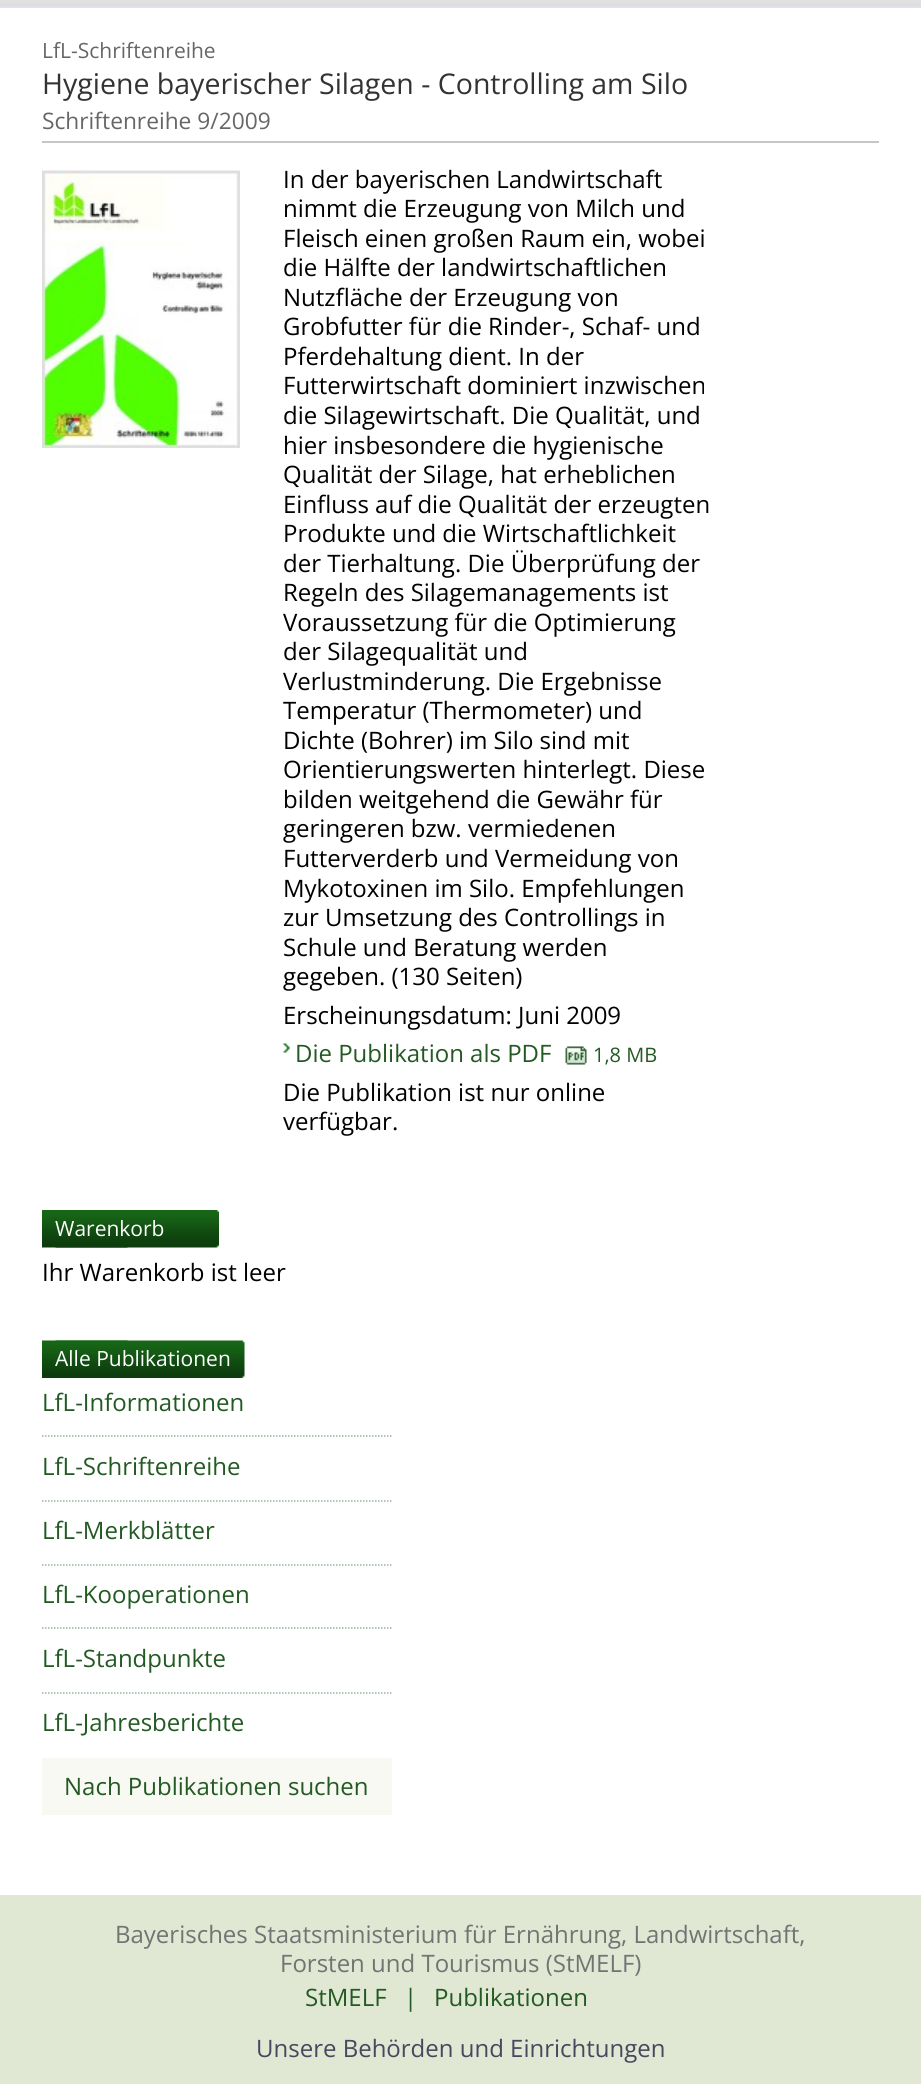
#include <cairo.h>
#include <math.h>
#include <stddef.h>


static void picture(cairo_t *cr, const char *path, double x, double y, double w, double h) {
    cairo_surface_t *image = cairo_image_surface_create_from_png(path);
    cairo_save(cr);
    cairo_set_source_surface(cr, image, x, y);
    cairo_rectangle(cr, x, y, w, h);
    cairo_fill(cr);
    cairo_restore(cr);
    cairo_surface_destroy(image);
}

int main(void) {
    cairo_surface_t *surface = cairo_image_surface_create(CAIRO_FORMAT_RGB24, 921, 2084);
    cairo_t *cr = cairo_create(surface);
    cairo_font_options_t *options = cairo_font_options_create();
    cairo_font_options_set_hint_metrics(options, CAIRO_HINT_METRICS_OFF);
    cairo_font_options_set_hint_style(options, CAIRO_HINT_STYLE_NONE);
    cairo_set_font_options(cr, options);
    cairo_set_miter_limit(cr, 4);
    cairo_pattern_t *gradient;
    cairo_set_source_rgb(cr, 1, 1, 1);
    cairo_paint(cr);
    gradient = cairo_pattern_create_linear(0, -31, 0, 6);
    cairo_pattern_add_color_stop_rgba(gradient, 0, 1, 1, 1, 1);
    cairo_pattern_add_color_stop_rgba(gradient, 1, 0.867, 0.867, 0.867, 1);
    cairo_set_source(cr, gradient);
    cairo_pattern_destroy(gradient);
    cairo_rectangle(cr, 0, 0, 921, 6);
    cairo_fill(cr);
    cairo_set_source_rgb(cr, 0.875, 0.886, 0.922);
    cairo_rectangle(cr, 0, 6, 921, 2);
    cairo_fill(cr);
    cairo_set_source_rgb(cr, 0.776, 0.776, 0.776);
    cairo_rectangle(cr, 42, 141, 837, 2);
    cairo_fill(cr);
    cairo_select_font_face(cr, "Open Sans", CAIRO_FONT_SLANT_NORMAL, CAIRO_FONT_WEIGHT_NORMAL);
    cairo_set_font_size(cr, 21);
    cairo_set_source_rgb(cr, 0.4, 0.4, 0.4);
    cairo_move_to(cr, 42, 58);
    cairo_show_text(cr, "LfL-Schriftenreihe");
    cairo_set_font_size(cr, 28.5);
    cairo_set_source_rgb(cr, 0.2, 0.2, 0.2);
    cairo_move_to(cr, 42, 94);
    cairo_show_text(cr, "Hygiene bayerischer Silagen - Controlling am Silo");
    cairo_set_font_size(cr, 22.75);
    cairo_set_source_rgb(cr, 0.4, 0.4, 0.4);
    cairo_move_to(cr, 42, 129);
    cairo_show_text(cr, "Schriftenreihe 9/2009");
    picture(cr, "img1.png", 42, 170, 198, 278);
    cairo_set_font_size(cr, 24);
    cairo_set_source_rgb(cr, 0, 0, 0);
    cairo_move_to(cr, 283, 188);
    cairo_show_text(cr, "In der bayerischen Landwirtschaft");
    cairo_move_to(cr, 283, 217);
    cairo_show_text(cr, "nimmt die Erzeugung von Milch und");
    cairo_move_to(cr, 283, 247);
    cairo_show_text(cr, "Fleisch einen großen Raum ein, wobei");
    cairo_move_to(cr, 283, 276);
    cairo_show_text(cr, "die Hälfte der landwirtschaftlichen");
    cairo_move_to(cr, 283, 306);
    cairo_show_text(cr, "Nutzfläche der Erzeugung von");
    cairo_move_to(cr, 283, 335);
    cairo_show_text(cr, "Grobfutter für die Rinder-, Schaf- und");
    cairo_move_to(cr, 283, 365);
    cairo_show_text(cr, "Pferdehaltung dient. In der");
    cairo_move_to(cr, 283, 394);
    cairo_show_text(cr, "Futterwirtschaft dominiert inzwischen");
    cairo_move_to(cr, 283, 424);
    cairo_show_text(cr, "die Silagewirtschaft. Die Qualität, und");
    cairo_move_to(cr, 283, 454);
    cairo_show_text(cr, "hier insbesondere die hygienische");
    cairo_move_to(cr, 283, 483);
    cairo_show_text(cr, "Qualität der Silage, hat erheblichen");
    cairo_move_to(cr, 283, 513);
    cairo_show_text(cr, "Einfluss auf die Qualität der erzeugten");
    cairo_move_to(cr, 283, 542);
    cairo_show_text(cr, "Produkte und die Wirtschaftlichkeit");
    cairo_move_to(cr, 283, 572);
    cairo_show_text(cr, "der Tierhaltung. Die Überprüfung der");
    cairo_move_to(cr, 283, 601);
    cairo_show_text(cr, "Regeln des Silagemanagements ist");
    cairo_move_to(cr, 283, 631);
    cairo_show_text(cr, "Voraussetzung für die Optimierung");
    cairo_move_to(cr, 283, 660);
    cairo_show_text(cr, "der Silagequalität und");
    cairo_move_to(cr, 283, 690);
    cairo_show_text(cr, "Verlustminderung. Die Ergebnisse");
    cairo_move_to(cr, 283, 719);
    cairo_show_text(cr, "Temperatur (Thermometer) und");
    cairo_move_to(cr, 283, 749);
    cairo_show_text(cr, "Dichte (Bohrer) im Silo sind mit");
    cairo_move_to(cr, 283, 778);
    cairo_show_text(cr, "Orientierungswerten hinterlegt. Diese");
    cairo_move_to(cr, 283, 808);
    cairo_show_text(cr, "bilden weitgehend die Gewähr für");
    cairo_move_to(cr, 283, 837);
    cairo_show_text(cr, "geringeren bzw. vermiedenen");
    cairo_move_to(cr, 283, 867);
    cairo_show_text(cr, "Futterverderb und Vermeidung von");
    cairo_move_to(cr, 283, 897);
    cairo_show_text(cr, "Mykotoxinen im Silo. Empfehlungen");
    cairo_move_to(cr, 283, 926);
    cairo_show_text(cr, "zur Umsetzung des Controllings in");
    cairo_move_to(cr, 283, 956);
    cairo_show_text(cr, "Schule und Beratung werden");
    cairo_move_to(cr, 283, 985);
    cairo_show_text(cr, "gegeben. (130 Seiten)");
    cairo_move_to(cr, 283, 1024);
    cairo_show_text(cr, "Erscheinungsdatum: Juni 2009");
    picture(cr, "img2.png", 283, 1043, 7, 10);
    cairo_set_source_rgb(cr, 0.137, 0.353, 0.137);
    cairo_move_to(cr, 295, 1062);
    cairo_show_text(cr, "Die Publikation als PDF");
    picture(cr, "img3.png", 565, 1046, 22, 19);
    cairo_set_font_size(cr, 20);
    cairo_move_to(cr, 593, 1062);
    cairo_show_text(cr, "1,8 MB");
    cairo_set_font_size(cr, 24);
    cairo_set_source_rgb(cr, 0, 0, 0);
    cairo_move_to(cr, 283, 1101);
    cairo_show_text(cr, "Die Publikation ist nur online");
    cairo_move_to(cr, 283, 1130);
    cairo_show_text(cr, "verfügbar.");
    picture(cr, "img4.png", 42, 1210, 86, 38);
    picture(cr, "img5.png", 55, 1210, 164, 38);
    cairo_set_font_size(cr, 21);
    cairo_set_source_rgb(cr, 1, 1, 1);
    cairo_move_to(cr, 55, 1236);
    cairo_show_text(cr, "Warenkorb");
    cairo_set_font_size(cr, 24);
    cairo_set_source_rgb(cr, 0, 0, 0);
    cairo_move_to(cr, 42, 1281);
    cairo_show_text(cr, "Ihr Warenkorb ist leer");
    picture(cr, "img6.png", 42, 1340, 86, 38);
    picture(cr, "img7.png", 55, 1340, 190, 38);
    cairo_set_font_size(cr, 21);
    cairo_set_source_rgb(cr, 1, 1, 1);
    cairo_move_to(cr, 55, 1366);
    cairo_show_text(cr, "Alle Publikationen");
    cairo_new_path(cr);
    cairo_move_to(cr, 42, 1436);
    cairo_line_to(cr, 391.5, 1436);
    cairo_set_source_rgb(cr, 0.6, 0.698, 0.6);
    cairo_set_line_width(cr, 1.5);
    cairo_set_dash(cr, (double[]){1.5, 1.5}, 2, 0);
    cairo_stroke(cr);
    cairo_set_font_size(cr, 24);
    cairo_set_source_rgb(cr, 0.137, 0.353, 0.137);
    cairo_move_to(cr, 42, 1411);
    cairo_show_text(cr, "LfL-Informationen");
    cairo_new_path(cr);
    cairo_move_to(cr, 42, 1501);
    cairo_line_to(cr, 391.5, 1501);
    cairo_set_source_rgb(cr, 0.6, 0.698, 0.6);
    cairo_stroke(cr);
    cairo_set_source_rgb(cr, 0.137, 0.353, 0.137);
    cairo_move_to(cr, 42, 1475);
    cairo_show_text(cr, "LfL-Schriftenreihe");
    cairo_new_path(cr);
    cairo_move_to(cr, 42, 1565);
    cairo_line_to(cr, 391.5, 1565);
    cairo_set_source_rgb(cr, 0.6, 0.698, 0.6);
    cairo_stroke(cr);
    cairo_set_source_rgb(cr, 0.137, 0.353, 0.137);
    cairo_move_to(cr, 42, 1539);
    cairo_show_text(cr, "LfL-Merkblätter");
    cairo_new_path(cr);
    cairo_move_to(cr, 42, 1628);
    cairo_line_to(cr, 391.5, 1628);
    cairo_set_source_rgb(cr, 0.6, 0.698, 0.6);
    cairo_stroke(cr);
    cairo_set_source_rgb(cr, 0.137, 0.353, 0.137);
    cairo_move_to(cr, 42, 1603);
    cairo_show_text(cr, "LfL-Kooperationen");
    cairo_new_path(cr);
    cairo_move_to(cr, 42, 1693);
    cairo_line_to(cr, 391.5, 1693);
    cairo_set_source_rgb(cr, 0.6, 0.698, 0.6);
    cairo_stroke(cr);
    cairo_set_source_rgb(cr, 0.137, 0.353, 0.137);
    cairo_move_to(cr, 42, 1667);
    cairo_show_text(cr, "LfL-Standpunkte");
    cairo_move_to(cr, 42, 1731);
    cairo_show_text(cr, "LfL-Jahresberichte");
    cairo_set_source_rgb(cr, 0.969, 0.976, 0.949);
    cairo_rectangle(cr, 42, 1758, 350, 57);
    cairo_fill(cr);
    cairo_set_source_rgb(cr, 0.137, 0.353, 0.137);
    cairo_move_to(cr, 64, 1795);
    cairo_show_text(cr, "Nach Publikationen suchen");
    cairo_set_source_rgb(cr, 0.878, 0.91, 0.831);
    cairo_rectangle(cr, 0, 1895, 921, 189);
    cairo_fill(cr);
    cairo_set_source_rgb(cr, 0.451, 0.451, 0.451);
    cairo_move_to(cr, 115, 1943);
    cairo_show_text(cr, "Bayerisches Staatsministerium für Ernährung, Landwirtschaft,");
    cairo_move_to(cr, 280, 1972);
    cairo_show_text(cr, "Forsten und Tourismus (StMELF)");
    cairo_set_source_rgb(cr, 0.137, 0.353, 0.137);
    cairo_move_to(cr, 305, 2006);
    cairo_show_text(cr, "StMELF");
    cairo_move_to(cr, 404, 2006);
    cairo_show_text(cr, "|");
    cairo_move_to(cr, 434, 2006);
    cairo_show_text(cr, "Publikationen");
    cairo_set_source_rgb(cr, 0.278, 0.282, 0.369);
    cairo_move_to(cr, 256, 2057);
    cairo_show_text(cr, "Unsere Behörden und Einrichtungen");
    cairo_surface_write_to_png(surface, "page.png");
    cairo_font_options_destroy(options);
    cairo_destroy(cr);
    cairo_surface_destroy(surface);
    return 0;
}
